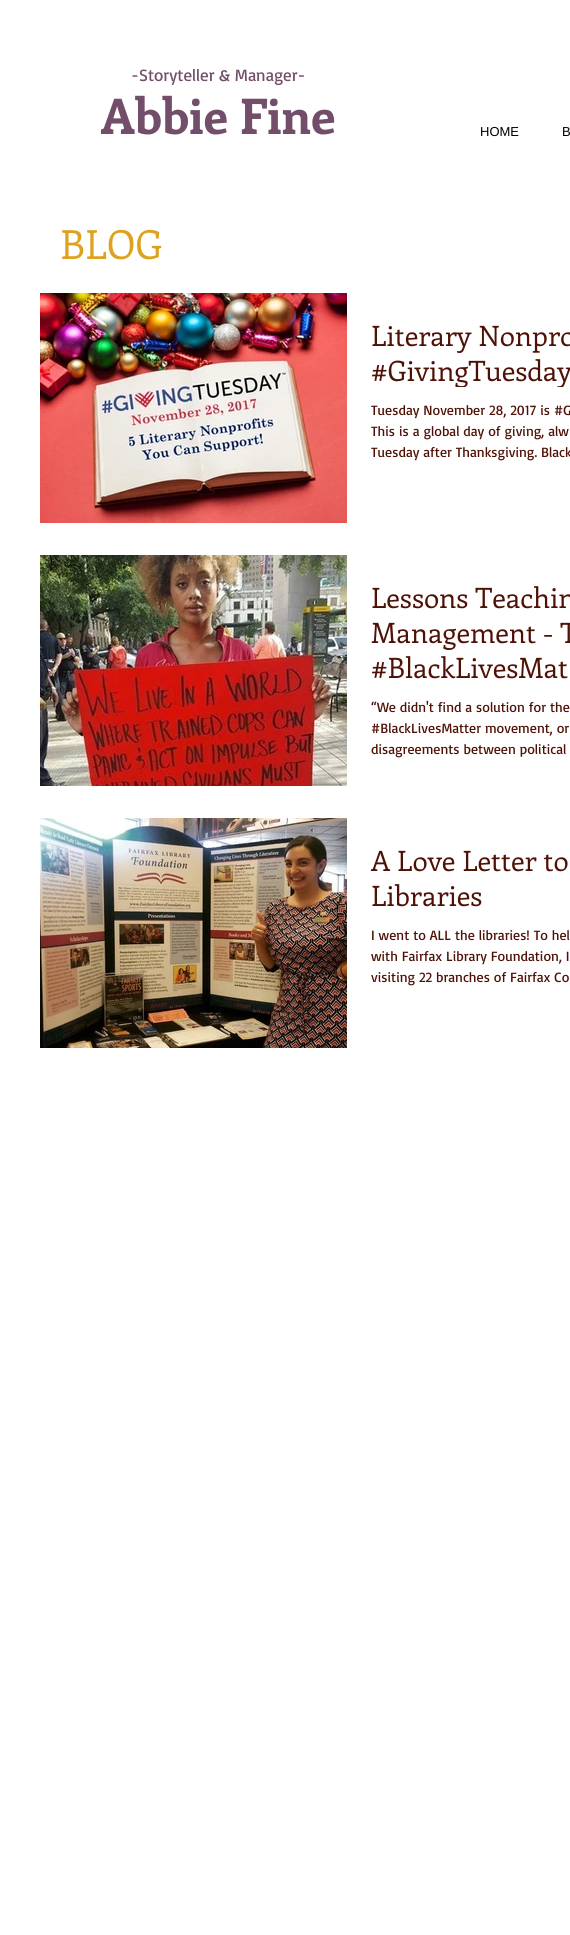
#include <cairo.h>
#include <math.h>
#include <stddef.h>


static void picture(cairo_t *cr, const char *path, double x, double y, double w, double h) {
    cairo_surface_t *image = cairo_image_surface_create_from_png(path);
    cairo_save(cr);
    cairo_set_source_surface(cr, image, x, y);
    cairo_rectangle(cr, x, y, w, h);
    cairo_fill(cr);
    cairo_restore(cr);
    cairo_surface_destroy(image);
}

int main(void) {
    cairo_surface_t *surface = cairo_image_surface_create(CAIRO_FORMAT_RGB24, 570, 1935);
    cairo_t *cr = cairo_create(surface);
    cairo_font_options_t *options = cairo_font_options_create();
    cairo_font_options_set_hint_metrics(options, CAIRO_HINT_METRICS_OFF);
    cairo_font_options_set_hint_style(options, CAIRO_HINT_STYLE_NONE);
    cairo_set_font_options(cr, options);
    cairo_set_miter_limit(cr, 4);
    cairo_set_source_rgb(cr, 1, 1, 1);
    cairo_paint(cr);
    cairo_select_font_face(cr, "Basic", CAIRO_FONT_SLANT_NORMAL, CAIRO_FONT_WEIGHT_NORMAL);
    cairo_set_font_size(cr, 17);
    cairo_set_source_rgb(cr, 0.451, 0.306, 0.416);
    cairo_move_to(cr, 131, 81);
    cairo_show_text(cr, "-Storyteller & Manager-");
    cairo_select_font_face(cr, "Enriqueta", CAIRO_FONT_SLANT_NORMAL, CAIRO_FONT_WEIGHT_BOLD);
    cairo_set_font_size(cr, 49);
    cairo_move_to(cr, 101, 134);
    cairo_show_text(cr, "Abbie Fine");
    cairo_select_font_face(cr, "Liberation Sans", CAIRO_FONT_SLANT_NORMAL, CAIRO_FONT_WEIGHT_NORMAL);
    cairo_set_font_size(cr, 13);
    cairo_set_source_rgb(cr, 0, 0, 0);
    cairo_move_to(cr, 480, 136);
    cairo_show_text(cr, "HOME");
    cairo_move_to(cr, 562, 136);
    cairo_show_text(cr, "B");
    cairo_select_font_face(cr, "Enriqueta", CAIRO_FONT_SLANT_NORMAL, CAIRO_FONT_WEIGHT_NORMAL);
    cairo_set_font_size(cr, 40);
    cairo_set_source_rgb(cr, 0.867, 0.639, 0.118);
    cairo_move_to(cr, 60, 259);
    cairo_show_text(cr, "BLOG");
    picture(cr, "img1.png", 40, 293, 307, 230);
    cairo_set_font_size(cr, 28);
    cairo_set_source_rgb(cr, 0.31, 0.067, 0.024);
    cairo_move_to(cr, 371, 346);
    cairo_show_text(cr, "Literary Nonpro");
    cairo_save(cr);
    cairo_rectangle(cr, 371, 317, 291, 70);
    cairo_clip(cr);
    cairo_move_to(cr, 371, 381);
    cairo_show_text(cr, "#GivingTuesday");
    cairo_restore(cr);
    cairo_select_font_face(cr, "Basic", CAIRO_FONT_SLANT_NORMAL, CAIRO_FONT_WEIGHT_NORMAL);
    cairo_set_font_size(cr, 14);
    cairo_move_to(cr, 371, 415);
    cairo_show_text(cr, "Tuesday November 28, 2017 is #G");
    cairo_move_to(cr, 371, 436);
    cairo_show_text(cr, "This is a global day of giving, alw");
    cairo_move_to(cr, 371, 457);
    cairo_show_text(cr, "Tuesday after Thanksgiving. Black");
    picture(cr, "img2.png", 40, 555, 307, 231);
    cairo_select_font_face(cr, "Enriqueta", CAIRO_FONT_SLANT_NORMAL, CAIRO_FONT_WEIGHT_NORMAL);
    cairo_set_font_size(cr, 28);
    cairo_move_to(cr, 371, 608);
    cairo_show_text(cr, "Lessons Teachin");
    cairo_move_to(cr, 371, 643);
    cairo_show_text(cr, "Management - T");
    cairo_move_to(cr, 371, 678);
    cairo_show_text(cr, "#BlackLivesMat");
    cairo_select_font_face(cr, "Basic", CAIRO_FONT_SLANT_NORMAL, CAIRO_FONT_WEIGHT_NORMAL);
    cairo_set_font_size(cr, 14);
    cairo_move_to(cr, 371, 712);
    cairo_show_text(cr, "“We didn't find a solution for the");
    cairo_move_to(cr, 371, 733);
    cairo_show_text(cr, "#BlackLivesMatter movement, or");
    cairo_move_to(cr, 371, 754);
    cairo_show_text(cr, "disagreements between political");
    picture(cr, "img3.png", 40, 818, 307, 230);
    cairo_select_font_face(cr, "Enriqueta", CAIRO_FONT_SLANT_NORMAL, CAIRO_FONT_WEIGHT_NORMAL);
    cairo_set_font_size(cr, 28);
    cairo_move_to(cr, 371, 871);
    cairo_show_text(cr, "A Love Letter to");
    cairo_move_to(cr, 371, 906);
    cairo_show_text(cr, "Libraries");
    cairo_select_font_face(cr, "Basic", CAIRO_FONT_SLANT_NORMAL, CAIRO_FONT_WEIGHT_NORMAL);
    cairo_set_font_size(cr, 14);
    cairo_move_to(cr, 371, 940);
    cairo_show_text(cr, "I went to ALL the libraries! To hel");
    cairo_move_to(cr, 371, 961);
    cairo_show_text(cr, "with Fairfax Library Foundation, I");
    cairo_move_to(cr, 371, 982);
    cairo_show_text(cr, "visiting 22 branches of Fairfax Co");
    cairo_surface_write_to_png(surface, "page.png");
    cairo_font_options_destroy(options);
    cairo_destroy(cr);
    cairo_surface_destroy(surface);
    return 0;
}
